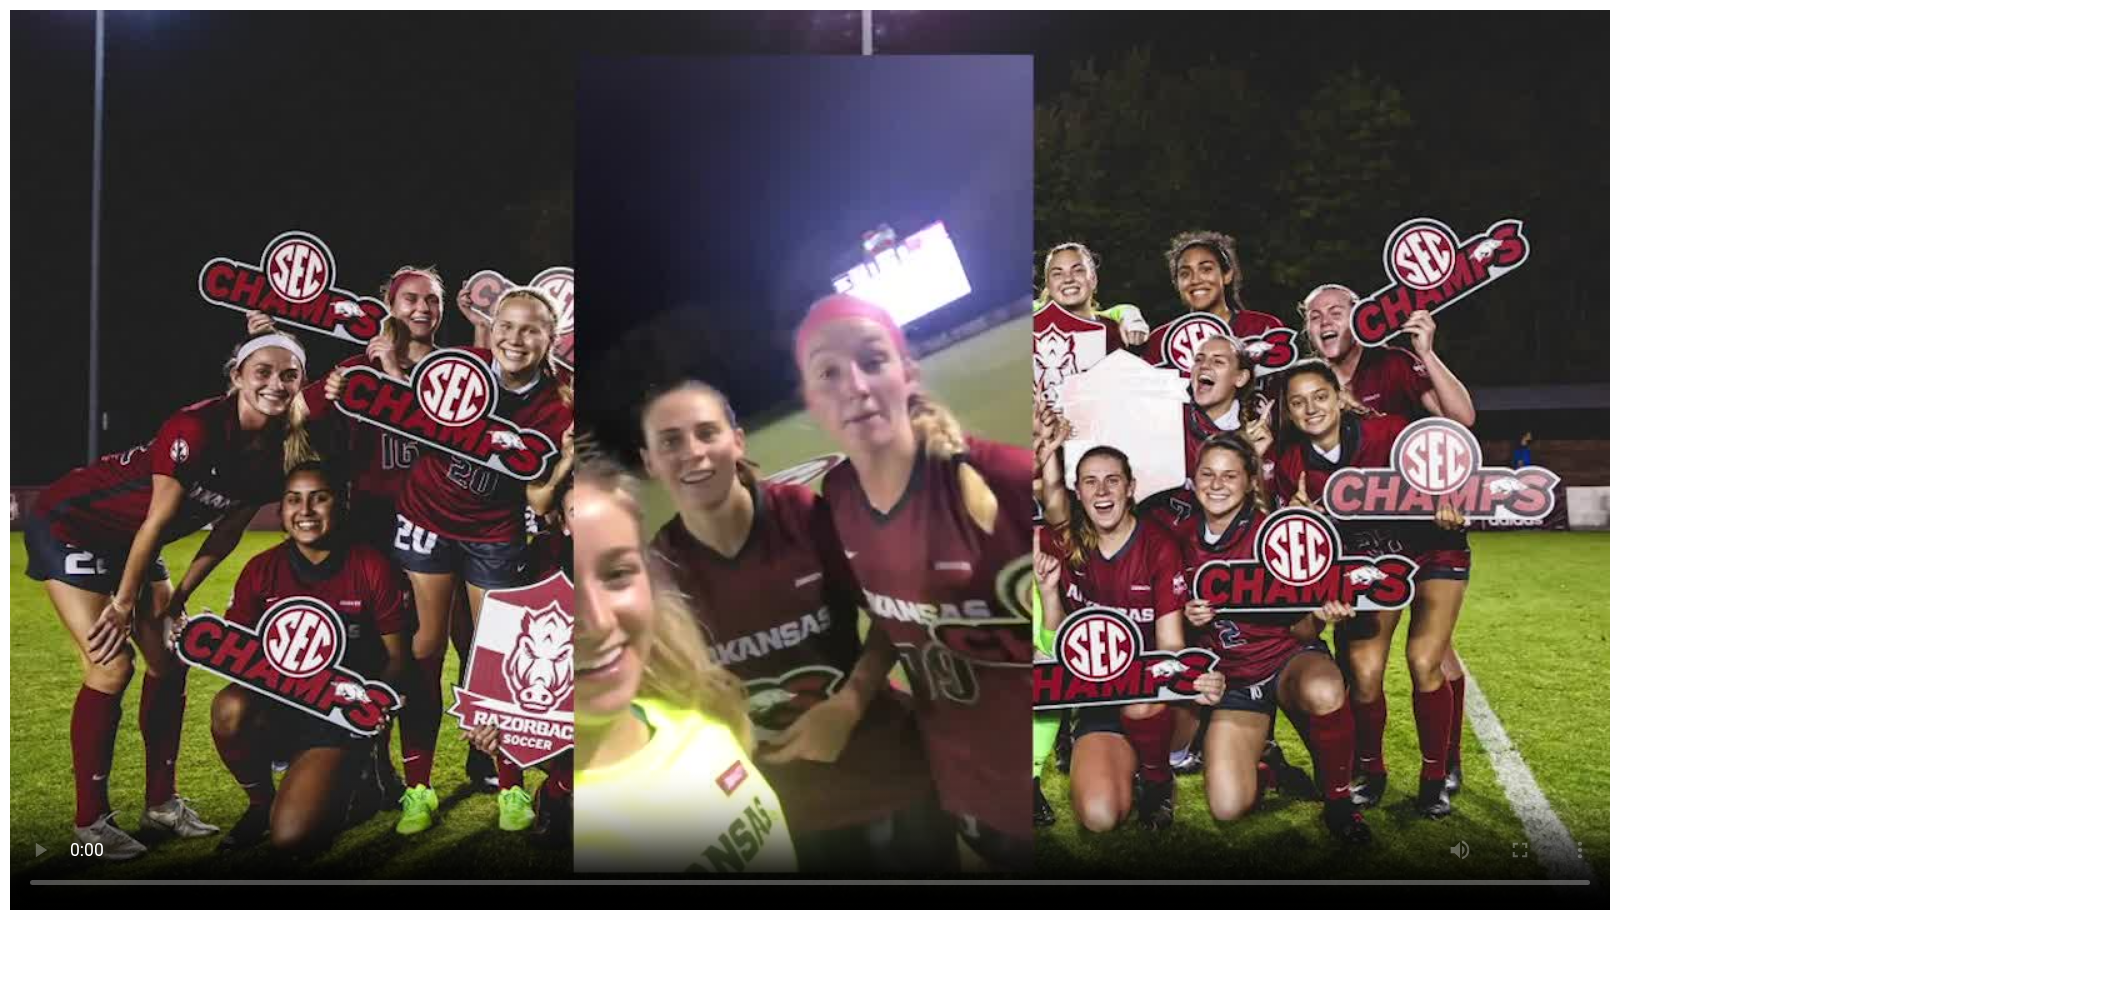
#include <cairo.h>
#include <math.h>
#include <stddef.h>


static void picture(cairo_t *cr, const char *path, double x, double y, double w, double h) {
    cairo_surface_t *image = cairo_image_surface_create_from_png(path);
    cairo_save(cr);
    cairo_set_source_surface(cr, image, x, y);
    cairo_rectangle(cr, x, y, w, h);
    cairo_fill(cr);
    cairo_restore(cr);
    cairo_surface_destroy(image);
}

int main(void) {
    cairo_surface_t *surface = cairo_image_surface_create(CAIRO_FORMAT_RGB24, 2110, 1006);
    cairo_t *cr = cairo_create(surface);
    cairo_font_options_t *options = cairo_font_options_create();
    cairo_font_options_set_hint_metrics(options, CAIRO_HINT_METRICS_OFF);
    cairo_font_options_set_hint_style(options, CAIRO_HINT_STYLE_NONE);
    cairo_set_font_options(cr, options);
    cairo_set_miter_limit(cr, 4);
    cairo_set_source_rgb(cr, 1, 1, 1);
    cairo_paint(cr);
    picture(cr, "img1.png", 10, 10, 1600, 900);
    cairo_surface_write_to_png(surface, "page.png");
    cairo_font_options_destroy(options);
    cairo_destroy(cr);
    cairo_surface_destroy(surface);
    return 0;
}
